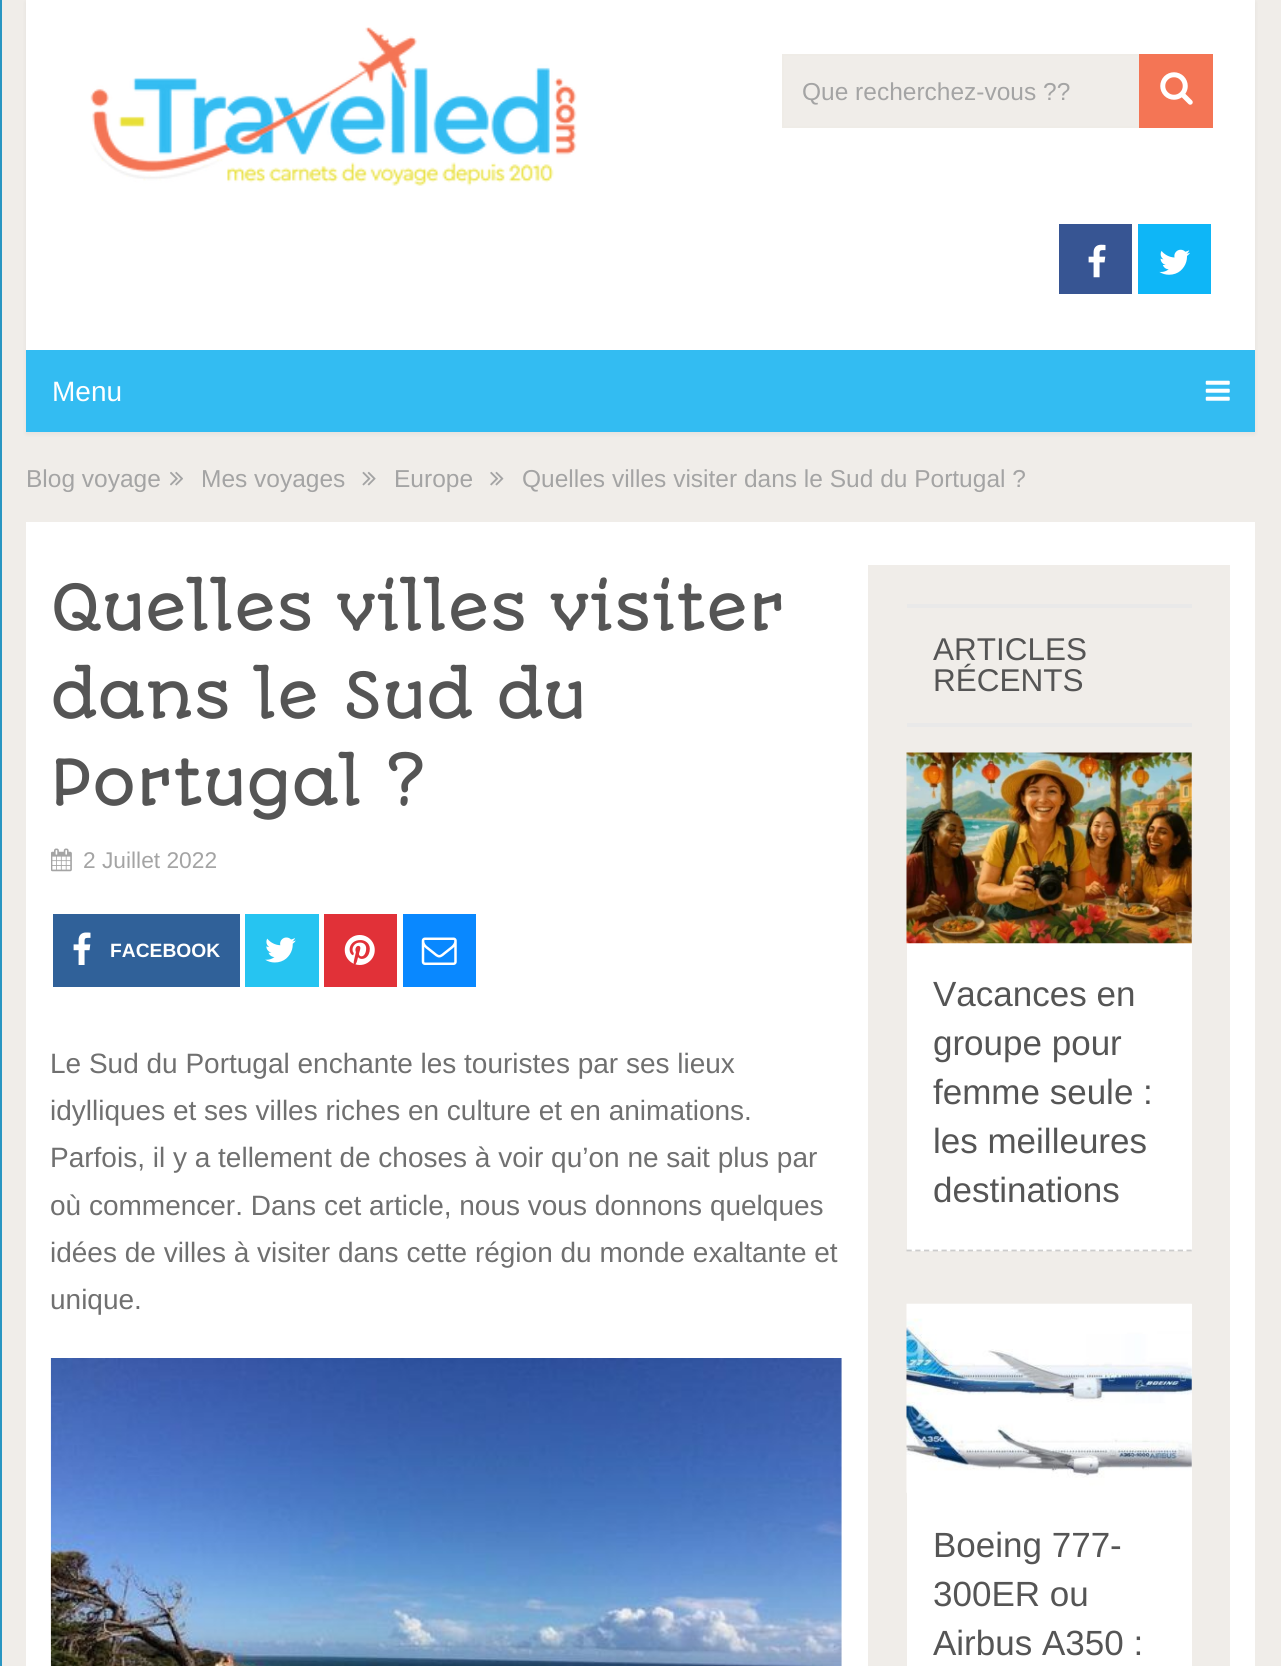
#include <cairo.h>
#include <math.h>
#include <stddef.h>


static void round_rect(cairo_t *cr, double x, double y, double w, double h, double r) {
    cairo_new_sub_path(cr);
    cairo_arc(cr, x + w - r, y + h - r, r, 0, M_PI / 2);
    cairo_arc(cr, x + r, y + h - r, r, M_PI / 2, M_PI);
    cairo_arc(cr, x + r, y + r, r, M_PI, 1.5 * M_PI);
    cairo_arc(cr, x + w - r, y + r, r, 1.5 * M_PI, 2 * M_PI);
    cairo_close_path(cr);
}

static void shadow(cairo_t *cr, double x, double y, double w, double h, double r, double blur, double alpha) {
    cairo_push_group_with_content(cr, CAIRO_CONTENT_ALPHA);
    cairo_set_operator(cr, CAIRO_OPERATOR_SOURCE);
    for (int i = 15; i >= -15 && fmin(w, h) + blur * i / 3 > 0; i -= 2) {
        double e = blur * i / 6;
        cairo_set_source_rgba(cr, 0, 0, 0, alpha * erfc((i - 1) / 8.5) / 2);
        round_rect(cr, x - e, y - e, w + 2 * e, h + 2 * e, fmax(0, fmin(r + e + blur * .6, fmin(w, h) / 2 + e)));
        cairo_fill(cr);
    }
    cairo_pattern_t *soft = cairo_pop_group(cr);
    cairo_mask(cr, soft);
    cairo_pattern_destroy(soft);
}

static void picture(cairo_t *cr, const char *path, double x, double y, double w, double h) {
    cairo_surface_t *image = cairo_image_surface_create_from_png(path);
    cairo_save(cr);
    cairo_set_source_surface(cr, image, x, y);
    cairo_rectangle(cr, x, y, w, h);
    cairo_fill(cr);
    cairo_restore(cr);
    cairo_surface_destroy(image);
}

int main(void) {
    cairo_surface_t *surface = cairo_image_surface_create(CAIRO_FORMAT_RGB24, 1281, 1666);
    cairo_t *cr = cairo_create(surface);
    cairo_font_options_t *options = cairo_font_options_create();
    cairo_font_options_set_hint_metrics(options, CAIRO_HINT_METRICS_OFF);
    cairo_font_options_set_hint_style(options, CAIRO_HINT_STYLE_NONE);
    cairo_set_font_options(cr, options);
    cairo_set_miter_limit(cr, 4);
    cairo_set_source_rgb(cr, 0.941, 0.929, 0.914);
    cairo_paint(cr);
    cairo_set_source_rgb(cr, 0, 0, 0);
    shadow(cr, 26, 2, 1229, 432, 0, 2, 0.05);
    cairo_set_source_rgb(cr, 1, 1, 1);
    cairo_rectangle(cr, 26, 0, 1229, 350);
    cairo_fill(cr);
    picture(cr, "img1.png", 90, 27, 487, 159);
    cairo_set_source_rgb(cr, 0.941, 0.929, 0.914);
    cairo_rectangle(cr, 784, 56, 355, 70);
    cairo_fill(cr);
    cairo_rectangle(cr, 783, 55, 429, 72);
    cairo_set_source_rgb(cr, 0.937, 0.922, 0.906);
    cairo_stroke(cr);
    cairo_select_font_face(cr, "Liberation Sans", CAIRO_FONT_SLANT_NORMAL, CAIRO_FONT_WEIGHT_NORMAL);
    cairo_set_font_size(cr, 24.5);
    cairo_set_source_rgb(cr, 0.643, 0.643, 0.643);
    cairo_move_to(cr, 802, 100);
    cairo_show_text(cr, "Que recherchez-vous ?\077");
    cairo_set_source_rgb(cr, 0.957, 0.459, 0.333);
    cairo_rectangle(cr, 1139, 54, 74, 74);
    cairo_fill(cr);
    picture(cr, "img2.png", 1160, 72, 33, 33);
    cairo_set_source_rgb(cr, 0.216, 0.333, 0.576);
    cairo_rectangle(cr, 1059, 224, 73, 70);
    cairo_fill(cr);
    picture(cr, "img3.png", 1088, 244, 18, 34);
    cairo_set_source_rgb(cr, 0.055, 0.714, 0.965);
    cairo_rectangle(cr, 1138, 224, 73, 70);
    cairo_fill(cr);
    picture(cr, "img4.png", 1159, 249, 31, 26);
    cairo_set_source_rgb(cr, 0.2, 0.737, 0.949);
    cairo_rectangle(cr, 26, 350, 1229, 82);
    cairo_fill(cr);
    cairo_set_source_rgb(cr, 0.161, 0.588, 0.761);
    cairo_rectangle(cr, 0, 0, 2, 1666);
    cairo_fill(cr);
    cairo_set_font_size(cr, 28);
    cairo_set_source_rgb(cr, 1, 1, 1);
    cairo_move_to(cr, 52, 401);
    cairo_show_text(cr, "Menu");
    picture(cr, "img5.png", 1205, 380, 25, 21);
    cairo_set_font_size(cr, 24.5);
    cairo_set_source_rgb(cr, 0.643, 0.643, 0.643);
    cairo_move_to(cr, 26, 487);
    cairo_show_text(cr, "Blog voyage");
    picture(cr, "img6.png", 170, 471, 13, 15);
    cairo_move_to(cr, 201, 487);
    cairo_show_text(cr, "Mes voyages");
    picture(cr, "img7.png", 362, 471, 14, 15);
    cairo_move_to(cr, 394, 487);
    cairo_show_text(cr, "Europe");
    picture(cr, "img8.png", 490, 471, 14, 15);
    cairo_move_to(cr, 522, 487);
    cairo_show_text(cr, "Quelles villes visiter dans le Sud du Portugal ?");
    cairo_set_source_rgb(cr, 1, 1, 1);
    cairo_rectangle(cr, 26, 522, 1229, 1144);
    cairo_fill(cr);
    cairo_select_font_face(cr, "Autour One", CAIRO_FONT_SLANT_NORMAL, CAIRO_FONT_WEIGHT_NORMAL);
    cairo_set_font_size(cr, 61.25);
    cairo_set_source_rgb(cr, 0.333, 0.333, 0.333);
    cairo_move_to(cr, 50, 630);
    cairo_show_text(cr, "Quelles villes visiter");
    cairo_move_to(cr, 50, 718);
    cairo_show_text(cr, "dans le Sud du");
    cairo_move_to(cr, 50, 805);
    cairo_show_text(cr, "Portugal ?");
    picture(cr, "img9.png", 51, 848, 21, 24);
    cairo_select_font_face(cr, "Liberation Sans", CAIRO_FONT_SLANT_NORMAL, CAIRO_FONT_WEIGHT_NORMAL);
    cairo_set_font_size(cr, 22.75);
    cairo_set_source_rgb(cr, 0.643, 0.643, 0.643);
    cairo_move_to(cr, 83, 868);
    cairo_show_text(cr, "2 Juillet 2022");
    cairo_set_source_rgb(cr, 0.188, 0.38, 0.6);
    cairo_rectangle(cr, 53, 914, 187, 73);
    cairo_fill(cr);
    picture(cr, "img10.png", 73, 932, 18, 33);
    cairo_select_font_face(cr, "Liberation Sans", CAIRO_FONT_SLANT_NORMAL, CAIRO_FONT_WEIGHT_BOLD);
    cairo_set_font_size(cr, 19.25);
    cairo_set_source_rgb(cr, 1, 1, 1);
    cairo_move_to(cr, 110, 957);
    cairo_show_text(cr, "FACEBOOK");
    cairo_set_source_rgb(cr, 0.149, 0.769, 0.945);
    cairo_rectangle(cr, 245, 914, 74, 73);
    cairo_fill(cr);
    picture(cr, "img11.png", 265, 937, 31, 26);
    cairo_set_source_rgb(cr, 0.882, 0.192, 0.22);
    cairo_rectangle(cr, 324, 914, 73, 73);
    cairo_fill(cr);
    picture(cr, "img12.png", 344, 935, 31, 30);
    cairo_set_source_rgb(cr, 0.039, 0.533, 1);
    cairo_rectangle(cr, 403, 914, 73, 73);
    cairo_fill(cr);
    picture(cr, "img13.png", 421, 937, 36, 28);
    cairo_select_font_face(cr, "Liberation Sans", CAIRO_FONT_SLANT_NORMAL, CAIRO_FONT_WEIGHT_NORMAL);
    cairo_set_font_size(cr, 28);
    cairo_set_source_rgb(cr, 0.439, 0.439, 0.439);
    cairo_move_to(cr, 50, 1073);
    cairo_show_text(cr, "Le Sud du Portugal enchante les touristes par ses lieux");
    cairo_move_to(cr, 50, 1120);
    cairo_show_text(cr, "idylliques et ses villes riches en culture et en animations.");
    cairo_move_to(cr, 50, 1167);
    cairo_show_text(cr, "Parfois, il y a tellement de choses à voir qu’on ne sait plus par");
    cairo_move_to(cr, 50, 1215);
    cairo_show_text(cr, "où commencer. Dans cet article, nous vous donnons quelques");
    cairo_move_to(cr, 50, 1262);
    cairo_show_text(cr, "idées de villes à visiter dans cette région du monde exaltante et");
    cairo_move_to(cr, 50, 1309);
    cairo_show_text(cr, "unique.");
    picture(cr, "img14.png", 50, 1358, 792, 308);
    cairo_set_source_rgb(cr, 0.941, 0.929, 0.914);
    cairo_rectangle(cr, 868, 565, 362, 1101);
    cairo_fill(cr);
    cairo_set_source_rgb(cr, 0.914, 0.914, 0.914);
    cairo_rectangle(cr, 907, 604, 285, 4);
    cairo_fill(cr);
    cairo_rectangle(cr, 907, 723, 285, 4);
    cairo_fill(cr);
    cairo_set_font_size(cr, 31.5);
    cairo_set_source_rgb(cr, 0.333, 0.333, 0.333);
    cairo_move_to(cr, 933, 660);
    cairo_show_text(cr, "ARTICLES");
    cairo_move_to(cr, 933, 691);
    cairo_show_text(cr, "RÉCENTS");
    cairo_set_source_rgb(cr, 1, 1, 1);
    cairo_rectangle(cr, 907, 753, 285, 498);
    cairo_fill(cr);
    cairo_new_path(cr);
    cairo_move_to(cr, 906.5, 1250.5);
    cairo_line_to(cr, 1192, 1250.5);
    cairo_set_source_rgb(cr, 0.8, 0.8, 0.8);
    cairo_set_line_width(cr, 1.8);
    cairo_set_dash(cr, (double[]){5.25, 3.5}, 2, 0);
    cairo_stroke(cr);
    picture(cr, "img15.png", 906, 752, 286, 192);
    cairo_set_font_size(cr, 35);
    cairo_set_source_rgb(cr, 0.333, 0.333, 0.333);
    cairo_move_to(cr, 933, 1006);
    cairo_show_text(cr, "Vacances en");
    cairo_move_to(cr, 933, 1055);
    cairo_show_text(cr, "groupe pour");
    cairo_move_to(cr, 933, 1104);
    cairo_show_text(cr, "femme seule :");
    cairo_move_to(cr, 933, 1153);
    cairo_show_text(cr, "les meilleures");
    cairo_move_to(cr, 933, 1202);
    cairo_show_text(cr, "destinations");
    cairo_set_source_rgb(cr, 1, 1, 1);
    cairo_rectangle(cr, 907, 1304, 285, 362);
    cairo_fill(cr);
    picture(cr, "img16.png", 906, 1303, 286, 190);
    cairo_set_source_rgb(cr, 0.333, 0.333, 0.333);
    cairo_move_to(cr, 933, 1557);
    cairo_show_text(cr, "Boeing 777-");
    cairo_move_to(cr, 933, 1606);
    cairo_show_text(cr, "300ER ou");
    cairo_move_to(cr, 933, 1655);
    cairo_show_text(cr, "Airbus A350 :");
    cairo_surface_write_to_png(surface, "page.png");
    cairo_font_options_destroy(options);
    cairo_destroy(cr);
    cairo_surface_destroy(surface);
    return 0;
}
